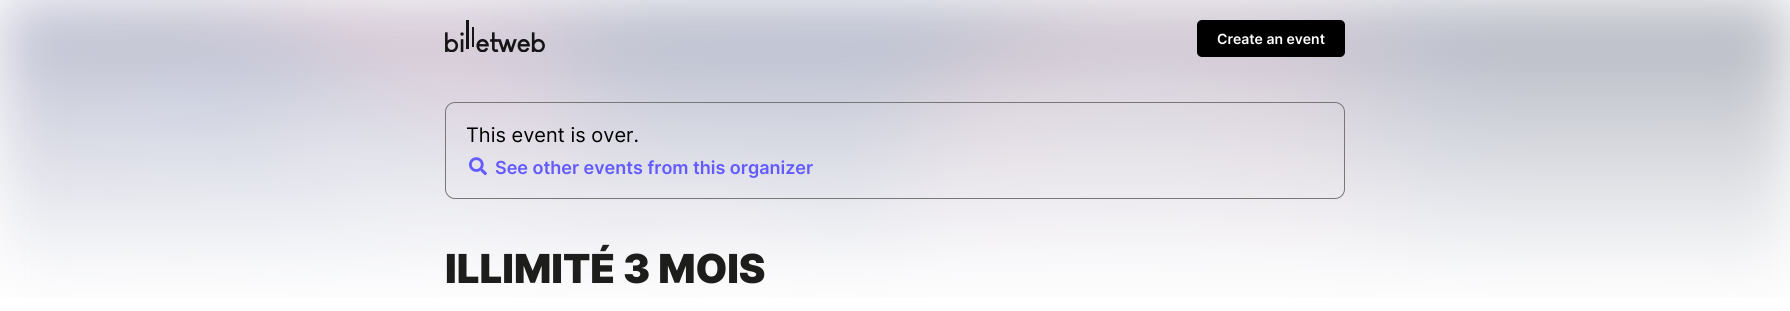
#include <cairo.h>
#include <math.h>
#include <stddef.h>


static void round_rect(cairo_t *cr, double x, double y, double w, double h, double r) {
    cairo_new_sub_path(cr);
    cairo_arc(cr, x + w - r, y + h - r, r, 0, M_PI / 2);
    cairo_arc(cr, x + r, y + h - r, r, M_PI / 2, M_PI);
    cairo_arc(cr, x + r, y + r, r, M_PI, 1.5 * M_PI);
    cairo_arc(cr, x + w - r, y + r, r, 1.5 * M_PI, 2 * M_PI);
    cairo_close_path(cr);
}

static void picture(cairo_t *cr, const char *path, double x, double y, double w, double h) {
    cairo_surface_t *image = cairo_image_surface_create_from_png(path);
    cairo_save(cr);
    cairo_set_source_surface(cr, image, x, y);
    cairo_rectangle(cr, x, y, w, h);
    cairo_fill(cr);
    cairo_restore(cr);
    cairo_surface_destroy(image);
}

int main(void) {
    cairo_surface_t *surface = cairo_image_surface_create(CAIRO_FORMAT_RGB24, 1790, 311);
    cairo_t *cr = cairo_create(surface);
    cairo_font_options_t *options = cairo_font_options_create();
    cairo_font_options_set_hint_metrics(options, CAIRO_HINT_METRICS_OFF);
    cairo_font_options_set_hint_style(options, CAIRO_HINT_STYLE_NONE);
    cairo_set_font_options(cr, options);
    cairo_set_miter_limit(cr, 4);
    cairo_set_source_rgb(cr, 1, 1, 1);
    cairo_paint(cr);
    picture(cr, "img1.png", 0, 0, 1790, 298);
    picture(cr, "img2.png", 445, 20, 100, 32);
    cairo_set_source_rgb(cr, 0, 0, 0);
    round_rect(cr, 1197, 20, 148, 37, 5);
    cairo_fill(cr);
    cairo_select_font_face(cr, "Inter SemiBold", CAIRO_FONT_SLANT_NORMAL, CAIRO_FONT_WEIGHT_NORMAL);
    cairo_set_font_size(cr, 14);
    cairo_set_source_rgb(cr, 1, 1, 1);
    cairo_move_to(cr, 1217, 44);
    cairo_show_text(cr, "Create an event");
    round_rect(cr, 445.5, 102.5, 899, 96, 9.5);
    cairo_set_source_rgb(cr, 0.467, 0.467, 0.467);
    cairo_set_line_width(cr, 1);
    cairo_stroke(cr);
    cairo_select_font_face(cr, "Inter", CAIRO_FONT_SLANT_NORMAL, CAIRO_FONT_WEIGHT_NORMAL);
    cairo_set_font_size(cr, 20);
    cairo_set_source_rgb(cr, 0, 0, 0);
    cairo_move_to(cr, 466, 142);
    cairo_show_text(cr, "This event is over.");
    picture(cr, "img3.png", 469, 157, 18, 19);
    cairo_select_font_face(cr, "Inter SemiBold", CAIRO_FONT_SLANT_NORMAL, CAIRO_FONT_WEIGHT_NORMAL);
    cairo_set_font_size(cr, 18);
    cairo_set_source_rgb(cr, 0.388, 0.357, 1);
    cairo_move_to(cr, 495, 174);
    cairo_show_text(cr, "See other events from this organizer");
    cairo_select_font_face(cr, "Inter Black", CAIRO_FONT_SLANT_NORMAL, CAIRO_FONT_WEIGHT_NORMAL);
    cairo_set_font_size(cr, 40);
    cairo_set_source_rgb(cr, 0.114, 0.114, 0.106);
    cairo_move_to(cr, 445, 283);
    cairo_show_text(cr, "ILLIMITÉ 3 MOIS");
    cairo_surface_write_to_png(surface, "page.png");
    cairo_font_options_destroy(options);
    cairo_destroy(cr);
    cairo_surface_destroy(surface);
    return 0;
}
